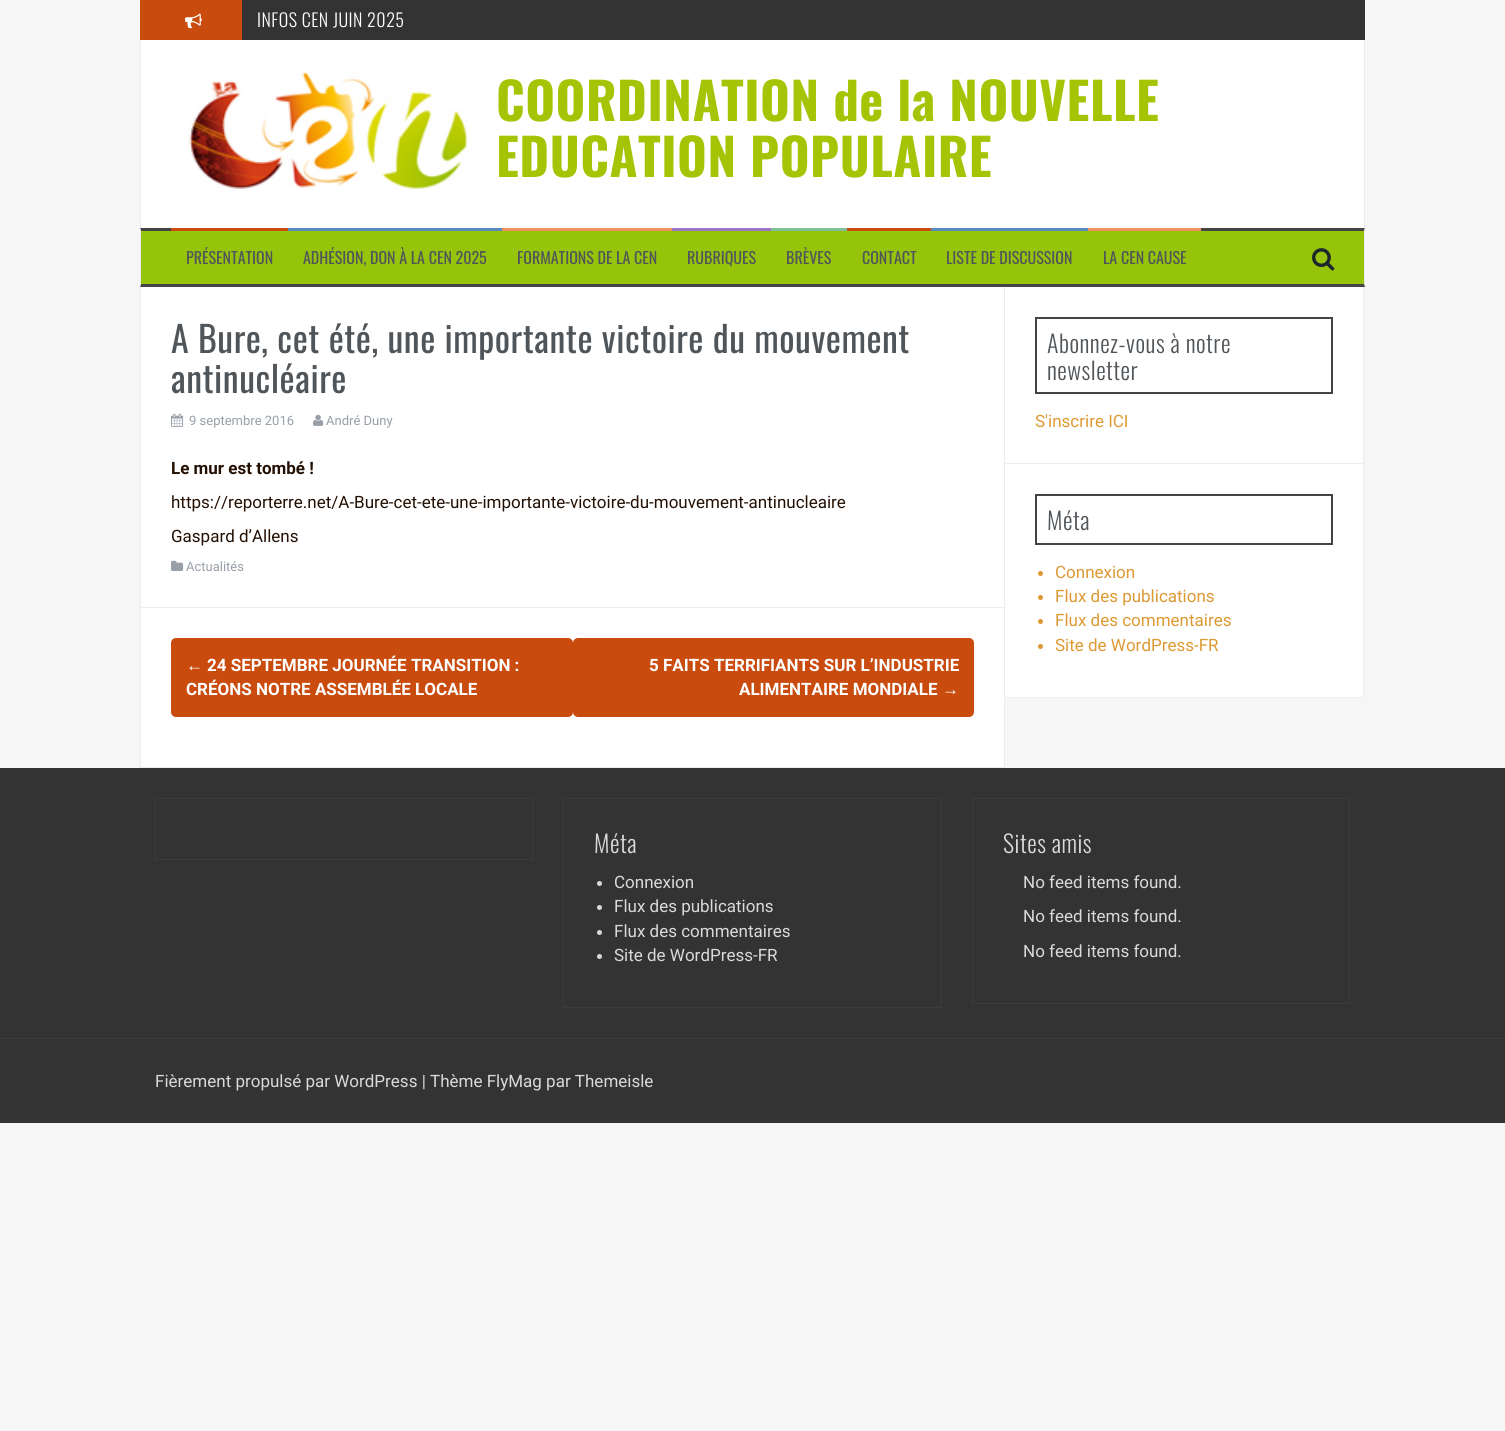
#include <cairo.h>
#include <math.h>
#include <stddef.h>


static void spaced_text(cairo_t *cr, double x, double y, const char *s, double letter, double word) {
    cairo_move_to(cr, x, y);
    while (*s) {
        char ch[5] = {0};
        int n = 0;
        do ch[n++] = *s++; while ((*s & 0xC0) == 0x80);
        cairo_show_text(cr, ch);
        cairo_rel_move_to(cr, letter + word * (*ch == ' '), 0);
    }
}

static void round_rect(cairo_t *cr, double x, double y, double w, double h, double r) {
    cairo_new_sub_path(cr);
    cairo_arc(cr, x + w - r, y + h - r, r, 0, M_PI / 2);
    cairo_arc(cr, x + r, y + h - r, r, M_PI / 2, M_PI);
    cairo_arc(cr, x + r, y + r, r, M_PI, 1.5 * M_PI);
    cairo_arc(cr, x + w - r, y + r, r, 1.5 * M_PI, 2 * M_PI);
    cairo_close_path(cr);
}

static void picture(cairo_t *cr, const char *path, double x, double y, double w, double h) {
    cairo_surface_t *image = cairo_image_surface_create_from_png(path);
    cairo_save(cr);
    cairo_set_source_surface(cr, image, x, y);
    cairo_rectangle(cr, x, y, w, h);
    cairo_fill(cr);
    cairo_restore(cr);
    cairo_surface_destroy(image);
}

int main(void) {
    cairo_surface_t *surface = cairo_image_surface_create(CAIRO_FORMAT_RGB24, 1505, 1431);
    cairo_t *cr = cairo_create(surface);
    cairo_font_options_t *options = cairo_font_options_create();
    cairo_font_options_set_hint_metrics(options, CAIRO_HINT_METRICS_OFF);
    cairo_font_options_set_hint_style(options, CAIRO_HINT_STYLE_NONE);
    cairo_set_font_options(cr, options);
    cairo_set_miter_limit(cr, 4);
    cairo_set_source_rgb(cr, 0.961, 0.961, 0.961);
    cairo_paint(cr);
    cairo_set_source_rgb(cr, 0.788, 0.298, 0.055);
    cairo_rectangle(cr, 140, 0, 102, 40);
    cairo_fill(cr);
    picture(cr, "img1.png", 185, 13, 17, 16);
    cairo_set_source_rgb(cr, 0.2, 0.2, 0.2);
    cairo_rectangle(cr, 242, 0, 1123, 40);
    cairo_fill(cr);
    cairo_select_font_face(cr, "Oswald Light", CAIRO_FONT_SLANT_NORMAL, CAIRO_FONT_WEIGHT_NORMAL);
    cairo_set_font_size(cr, 18);
    cairo_set_source_rgb(cr, 1, 1, 1);
    spaced_text(cr, 257, 27, "INFOS CEN JUIN 2025", 0.5, 0);
    cairo_rectangle(cr, 141, 40, 1223, 188);
    cairo_fill(cr);
    cairo_set_source_rgb(cr, 0.922, 0.922, 0.922);
    cairo_rectangle(cr, 1364, 40, 1, 188);
    cairo_fill(cr);
    cairo_rectangle(cr, 140, 40, 1, 188);
    cairo_fill(cr);
    picture(cr, "img2.png", 189, 71, 279, 118);
    cairo_select_font_face(cr, "Oswald", CAIRO_FONT_SLANT_NORMAL, CAIRO_FONT_WEIGHT_BOLD);
    cairo_set_font_size(cr, 51);
    cairo_set_source_rgb(cr, 0.647, 0.769, 0.027);
    spaced_text(cr, 496, 121, "COORDINATION de la NOUVELLE", 0.5, 0);
    spaced_text(cr, 496, 177, "EDUCATION POPULAIRE", 0.5, 0);
    cairo_set_source_rgb(cr, 0.588, 0.769, 0.043);
    cairo_rectangle(cr, 141, 231, 1223, 53);
    cairo_fill(cr);
    cairo_set_source_rgb(cr, 0.267, 0.267, 0.267);
    cairo_new_path(cr);
    cairo_move_to(cr, 140, 228);
    cairo_line_to(cr, 1365, 228);
    cairo_line_to(cr, 1364, 231);
    cairo_line_to(cr, 141, 231);
    cairo_close_path(cr);
    cairo_fill(cr);
    cairo_set_source_rgb(cr, 0.922, 0.922, 0.922);
    cairo_new_path(cr);
    cairo_move_to(cr, 1365, 228);
    cairo_line_to(cr, 1365, 287);
    cairo_line_to(cr, 1364, 284);
    cairo_line_to(cr, 1364, 231);
    cairo_close_path(cr);
    cairo_fill(cr);
    cairo_set_source_rgb(cr, 0.267, 0.267, 0.267);
    cairo_new_path(cr);
    cairo_move_to(cr, 1365, 287);
    cairo_line_to(cr, 140, 287);
    cairo_line_to(cr, 141, 284);
    cairo_line_to(cr, 1364, 284);
    cairo_close_path(cr);
    cairo_fill(cr);
    cairo_set_source_rgb(cr, 0.922, 0.922, 0.922);
    cairo_new_path(cr);
    cairo_move_to(cr, 140, 287);
    cairo_line_to(cr, 140, 228);
    cairo_line_to(cr, 141, 231);
    cairo_line_to(cr, 141, 284);
    cairo_close_path(cr);
    cairo_fill(cr);
    cairo_set_source_rgb(cr, 0.788, 0.298, 0.055);
    cairo_rectangle(cr, 171, 228, 117, 3);
    cairo_fill(cr);
    cairo_select_font_face(cr, "Oswald", CAIRO_FONT_SLANT_NORMAL, CAIRO_FONT_WEIGHT_NORMAL);
    cairo_set_font_size(cr, 16);
    cairo_set_source_rgb(cr, 0.314, 0.333, 0.349);
    cairo_move_to(cr, 186, 264);
    cairo_show_text(cr, "PRÉSENTATION");
    cairo_set_source_rgb(cr, 0.357, 0.541, 0.753);
    cairo_rectangle(cr, 288, 228, 214, 3);
    cairo_fill(cr);
    cairo_set_source_rgb(cr, 0.314, 0.333, 0.349);
    cairo_move_to(cr, 303, 264);
    cairo_show_text(cr, "ADHÉSION, DON À LA CEN 2025");
    cairo_set_source_rgb(cr, 0.929, 0.58, 0.365);
    cairo_rectangle(cr, 502, 228, 170, 3);
    cairo_fill(cr);
    cairo_set_source_rgb(cr, 0.314, 0.333, 0.349);
    cairo_move_to(cr, 517, 264);
    cairo_show_text(cr, "FORMATIONS DE LA CEN");
    cairo_set_source_rgb(cr, 0.624, 0.463, 0.792);
    cairo_rectangle(cr, 672, 228, 99, 3);
    cairo_fill(cr);
    cairo_set_source_rgb(cr, 0.314, 0.333, 0.349);
    cairo_move_to(cr, 687, 264);
    cairo_show_text(cr, "RUBRIQUES");
    cairo_set_source_rgb(cr, 0.498, 0.753, 0.608);
    cairo_rectangle(cr, 771, 228, 76, 3);
    cairo_fill(cr);
    cairo_set_source_rgb(cr, 0.314, 0.333, 0.349);
    cairo_move_to(cr, 786, 264);
    cairo_show_text(cr, "BRÈVES");
    cairo_set_source_rgb(cr, 0.788, 0.298, 0.055);
    cairo_rectangle(cr, 847, 228, 84, 3);
    cairo_fill(cr);
    cairo_set_source_rgb(cr, 0.314, 0.333, 0.349);
    cairo_move_to(cr, 862, 264);
    cairo_show_text(cr, "CONTACT");
    cairo_set_source_rgb(cr, 0.357, 0.541, 0.753);
    cairo_rectangle(cr, 931, 228, 157, 3);
    cairo_fill(cr);
    cairo_set_source_rgb(cr, 0.314, 0.333, 0.349);
    cairo_move_to(cr, 946, 264);
    cairo_show_text(cr, "LISTE DE DISCUSSION");
    cairo_set_source_rgb(cr, 0.929, 0.58, 0.365);
    cairo_rectangle(cr, 1088, 228, 113, 3);
    cairo_fill(cr);
    cairo_set_source_rgb(cr, 0.314, 0.333, 0.349);
    cairo_move_to(cr, 1103, 264);
    cairo_show_text(cr, "LA CEN CAUSE");
    picture(cr, "img3.png", 1312, 248, 23, 23);
    cairo_set_source_rgb(cr, 1, 1, 1);
    cairo_rectangle(cr, 141, 287, 863, 320);
    cairo_fill(cr);
    cairo_set_source_rgb(cr, 0.922, 0.922, 0.922);
    cairo_rectangle(cr, 140, 607, 865, 1);
    cairo_fill(cr);
    cairo_rectangle(cr, 140, 287, 1, 321);
    cairo_fill(cr);
    cairo_set_font_size(cr, 36);
    cairo_set_source_rgb(cr, 0.314, 0.333, 0.349);
    spaced_text(cr, 171, 353, "A Bure, cet été, une importante victoire du mouvement", 0.5, 0);
    spaced_text(cr, 171, 393, "antinucléaire", 0.5, 0);
    picture(cr, "img4.png", 171, 413, 13, 14);
    cairo_select_font_face(cr, "Roboto", CAIRO_FONT_SLANT_NORMAL, CAIRO_FONT_WEIGHT_NORMAL);
    cairo_set_font_size(cr, 13);
    cairo_set_source_rgb(cr, 0.596, 0.624, 0.659);
    cairo_move_to(cr, 189, 425);
    cairo_show_text(cr, "9 septembre 2016");
    picture(cr, "img5.png", 313, 414, 11, 12);
    cairo_move_to(cr, 326, 425);
    cairo_show_text(cr, "André Duny");
    cairo_select_font_face(cr, "Roboto", CAIRO_FONT_SLANT_NORMAL, CAIRO_FONT_WEIGHT_BOLD);
    cairo_set_font_size(cr, 17);
    cairo_set_source_rgb(cr, 0.137, 0.063, 0.012);
    cairo_move_to(cr, 171, 474);
    cairo_show_text(cr, "Le mur est tombé !");
    cairo_select_font_face(cr, "Roboto", CAIRO_FONT_SLANT_NORMAL, CAIRO_FONT_WEIGHT_NORMAL);
    cairo_move_to(cr, 171, 508);
    cairo_show_text(cr, "https://reporterre.net/A-Bure-cet-ete-une-importante-victoire-du-mouvement-antinucleaire");
    cairo_move_to(cr, 171, 542);
    cairo_show_text(cr, "Gaspard d’Allens");
    picture(cr, "img6.png", 171, 560, 13, 11);
    cairo_set_font_size(cr, 13);
    cairo_set_source_rgb(cr, 0.596, 0.624, 0.659);
    cairo_move_to(cr, 186, 571);
    cairo_show_text(cr, "Actualités");
    cairo_set_source_rgb(cr, 1, 1, 1);
    cairo_rectangle(cr, 141, 608, 863, 159);
    cairo_fill(cr);
    cairo_set_source_rgb(cr, 0.922, 0.922, 0.922);
    cairo_rectangle(cr, 1363, 287, 1, 411);
    cairo_fill(cr);
    cairo_rectangle(cr, 1004, 697, 360, 1);
    cairo_fill(cr);
    cairo_rectangle(cr, 1004, 608, 1, 160);
    cairo_fill(cr);
    cairo_rectangle(cr, 140, 767, 865, 1);
    cairo_fill(cr);
    cairo_rectangle(cr, 140, 608, 1, 160);
    cairo_fill(cr);
    cairo_set_source_rgb(cr, 0.788, 0.298, 0.055);
    round_rect(cr, 171, 638, 402, 79, 5);
    cairo_fill(cr);
    cairo_select_font_face(cr, "Liberation Sans", CAIRO_FONT_SLANT_NORMAL, CAIRO_FONT_WEIGHT_BOLD);
    cairo_set_font_size(cr, 17);
    cairo_set_source_rgb(cr, 1, 1, 1);
    cairo_move_to(cr, 186, 671);
    cairo_show_text(cr, "←");
    cairo_select_font_face(cr, "Roboto", CAIRO_FONT_SLANT_NORMAL, CAIRO_FONT_WEIGHT_BOLD);
    cairo_move_to(cr, 207, 671);
    cairo_show_text(cr, "24 SEPTEMBRE JOURNÉE TRANSITION :");
    cairo_move_to(cr, 186, 695);
    cairo_show_text(cr, "CRÉONS NOTRE ASSEMBLÉE LOCALE");
    cairo_set_source_rgb(cr, 0.788, 0.298, 0.055);
    round_rect(cr, 573, 638, 401, 79, 5);
    cairo_fill(cr);
    cairo_set_source_rgb(cr, 1, 1, 1);
    cairo_move_to(cr, 649, 671);
    cairo_show_text(cr, "5 FAITS TERRIFIANTS SUR L’INDUSTRIE");
    cairo_move_to(cr, 739, 695);
    cairo_show_text(cr, "ALIMENTAIRE MONDIALE");
    cairo_select_font_face(cr, "Liberation Sans", CAIRO_FONT_SLANT_NORMAL, CAIRO_FONT_WEIGHT_BOLD);
    cairo_move_to(cr, 942, 695);
    cairo_show_text(cr, "→");
    cairo_rectangle(cr, 1005, 287, 358, 176);
    cairo_fill(cr);
    cairo_set_source_rgb(cr, 0.922, 0.922, 0.922);
    cairo_rectangle(cr, 1004, 463, 360, 1);
    cairo_fill(cr);
    cairo_rectangle(cr, 1004, 287, 1, 321);
    cairo_fill(cr);
    cairo_rectangle(cr, 1036, 318, 296, 75);
    cairo_set_source_rgb(cr, 0.267, 0.267, 0.267);
    cairo_stroke(cr);
    cairo_select_font_face(cr, "Oswald Light", CAIRO_FONT_SLANT_NORMAL, CAIRO_FONT_WEIGHT_NORMAL);
    cairo_set_font_size(cr, 24);
    cairo_set_source_rgb(cr, 0.314, 0.333, 0.349);
    spaced_text(cr, 1047, 353, "Abonnez-vous à notre", 0.5, 0);
    spaced_text(cr, 1047, 380, "newsletter", 0.5, 0);
    cairo_select_font_face(cr, "Roboto", CAIRO_FONT_SLANT_NORMAL, CAIRO_FONT_WEIGHT_NORMAL);
    cairo_set_font_size(cr, 17);
    cairo_set_source_rgb(cr, 0.867, 0.6, 0.2);
    cairo_move_to(cr, 1035, 427);
    cairo_show_text(cr, "S'inscrire ICI");
    cairo_set_source_rgb(cr, 1, 1, 1);
    cairo_rectangle(cr, 1005, 464, 358, 233);
    cairo_fill(cr);
    cairo_rectangle(cr, 1036, 495, 296, 49);
    cairo_set_source_rgb(cr, 0.267, 0.267, 0.267);
    cairo_stroke(cr);
    cairo_select_font_face(cr, "Oswald Light", CAIRO_FONT_SLANT_NORMAL, CAIRO_FONT_WEIGHT_NORMAL);
    cairo_set_font_size(cr, 24);
    cairo_set_source_rgb(cr, 0.314, 0.333, 0.349);
    spaced_text(cr, 1047, 530, "Méta", 0.5, 0);
    cairo_set_source_rgb(cr, 0.867, 0.6, 0.2);
    cairo_new_path(cr);
    cairo_arc(cr, 1040.5, 573.5, 2.5, 0, 2 * M_PI);
    cairo_fill(cr);
    cairo_select_font_face(cr, "Roboto", CAIRO_FONT_SLANT_NORMAL, CAIRO_FONT_WEIGHT_NORMAL);
    cairo_set_font_size(cr, 17);
    cairo_move_to(cr, 1055, 578);
    cairo_show_text(cr, "Connexion");
    cairo_new_path(cr);
    cairo_arc(cr, 1040.5, 597.5, 2.5, 0, 2 * M_PI);
    cairo_fill(cr);
    cairo_move_to(cr, 1055, 602);
    cairo_show_text(cr, "Flux des publications");
    cairo_new_path(cr);
    cairo_arc(cr, 1040.5, 621.5, 2.5, 0, 2 * M_PI);
    cairo_fill(cr);
    cairo_move_to(cr, 1055, 626);
    cairo_show_text(cr, "Flux des commentaires");
    cairo_new_path(cr);
    cairo_arc(cr, 1040.5, 646.5, 2.5, 0, 2 * M_PI);
    cairo_fill(cr);
    cairo_move_to(cr, 1055, 651);
    cairo_show_text(cr, "Site de WordPress-FR");
    cairo_set_source_rgb(cr, 0.2, 0.2, 0.2);
    cairo_rectangle(cr, 0, 768, 1505, 270);
    cairo_fill(cr);
    cairo_set_source_rgb(cr, 0.235, 0.235, 0.235);
    cairo_rectangle(cr, 0, 1038, 1505, 1);
    cairo_fill(cr);
    cairo_rectangle(cr, 155.5, 798.5, 377, 61);
    cairo_set_line_width(cr, 1);
    cairo_stroke(cr);
    cairo_rectangle(cr, 563.5, 798.5, 378, 209);
    cairo_stroke(cr);
    cairo_select_font_face(cr, "Oswald Light", CAIRO_FONT_SLANT_NORMAL, CAIRO_FONT_WEIGHT_NORMAL);
    cairo_set_font_size(cr, 24);
    cairo_set_source_rgb(cr, 0.855, 0.855, 0.855);
    spaced_text(cr, 594, 853, "Méta", 0.5, 0);
    cairo_new_path(cr);
    cairo_arc(cr, 599.5, 883.5, 2.5, 0, 2 * M_PI);
    cairo_fill(cr);
    cairo_select_font_face(cr, "Roboto", CAIRO_FONT_SLANT_NORMAL, CAIRO_FONT_WEIGHT_NORMAL);
    cairo_set_font_size(cr, 17);
    cairo_move_to(cr, 614, 888);
    cairo_show_text(cr, "Connexion");
    cairo_new_path(cr);
    cairo_arc(cr, 599.5, 907.5, 2.5, 0, 2 * M_PI);
    cairo_fill(cr);
    cairo_move_to(cr, 614, 912);
    cairo_show_text(cr, "Flux des publications");
    cairo_new_path(cr);
    cairo_arc(cr, 599.5, 932.5, 2.5, 0, 2 * M_PI);
    cairo_fill(cr);
    cairo_move_to(cr, 614, 937);
    cairo_show_text(cr, "Flux des commentaires");
    cairo_new_path(cr);
    cairo_arc(cr, 599.5, 956.5, 2.5, 0, 2 * M_PI);
    cairo_fill(cr);
    cairo_move_to(cr, 614, 961);
    cairo_show_text(cr, "Site de WordPress-FR");
    cairo_rectangle(cr, 972.5, 798.5, 377, 205);
    cairo_set_source_rgb(cr, 0.235, 0.235, 0.235);
    cairo_stroke(cr);
    cairo_select_font_face(cr, "Oswald Light", CAIRO_FONT_SLANT_NORMAL, CAIRO_FONT_WEIGHT_NORMAL);
    cairo_set_font_size(cr, 24);
    cairo_set_source_rgb(cr, 0.855, 0.855, 0.855);
    spaced_text(cr, 1003, 853, "Sites amis", 0.5, 0);
    cairo_select_font_face(cr, "Roboto", CAIRO_FONT_SLANT_NORMAL, CAIRO_FONT_WEIGHT_NORMAL);
    cairo_set_font_size(cr, 17);
    cairo_move_to(cr, 1023, 888);
    cairo_show_text(cr, "No feed items found.");
    cairo_move_to(cr, 1023, 922);
    cairo_show_text(cr, "No feed items found.");
    cairo_move_to(cr, 1023, 957);
    cairo_show_text(cr, "No feed items found.");
    cairo_set_source_rgb(cr, 0.2, 0.2, 0.2);
    cairo_rectangle(cr, 0, 1039, 1505, 84);
    cairo_fill(cr);
    cairo_set_source_rgb(cr, 0.855, 0.855, 0.855);
    cairo_move_to(cr, 155, 1087);
    cairo_show_text(cr, "Fièrement propulsé par WordPress | Thème FlyMag par Themeisle");
    cairo_surface_write_to_png(surface, "page.png");
    cairo_font_options_destroy(options);
    cairo_destroy(cr);
    cairo_surface_destroy(surface);
    return 0;
}
